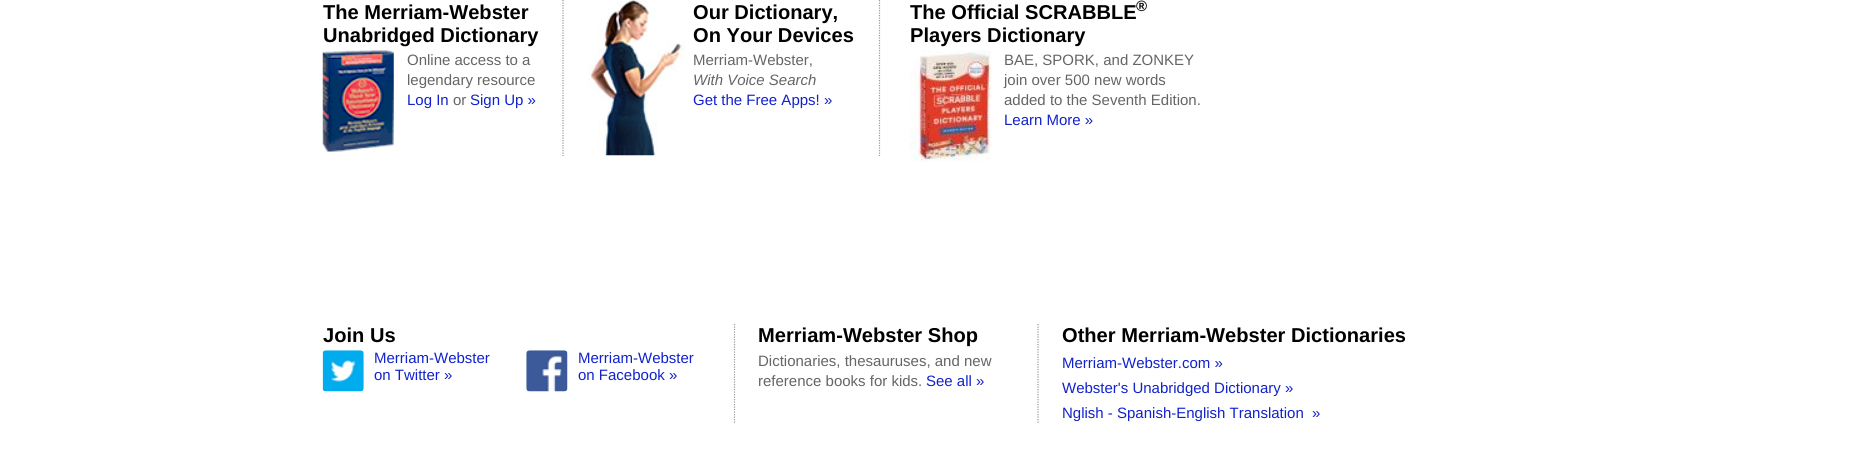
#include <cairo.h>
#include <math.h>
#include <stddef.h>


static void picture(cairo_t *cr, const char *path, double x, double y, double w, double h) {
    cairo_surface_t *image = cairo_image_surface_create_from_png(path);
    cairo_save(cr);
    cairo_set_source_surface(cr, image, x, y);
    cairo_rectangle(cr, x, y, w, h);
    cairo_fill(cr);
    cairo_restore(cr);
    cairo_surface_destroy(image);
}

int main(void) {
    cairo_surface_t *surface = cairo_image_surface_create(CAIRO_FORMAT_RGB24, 1870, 473);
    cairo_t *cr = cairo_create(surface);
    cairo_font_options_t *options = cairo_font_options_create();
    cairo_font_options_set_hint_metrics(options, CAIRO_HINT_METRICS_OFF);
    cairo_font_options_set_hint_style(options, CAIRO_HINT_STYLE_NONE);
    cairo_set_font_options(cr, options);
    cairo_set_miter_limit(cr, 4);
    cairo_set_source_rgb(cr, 1, 1, 1);
    cairo_paint(cr);
    cairo_new_path(cr);
    cairo_move_to(cr, 563, 0);
    cairo_line_to(cr, 563, 156);
    cairo_set_source_rgb(cr, 0.6, 0.6, 0.6);
    cairo_set_line_width(cr, 1.2);
    cairo_set_dash(cr, (double[]){1.25, 1.25}, 2, 0);
    cairo_stroke(cr);
    cairo_save(cr);
    cairo_rectangle(cr, 323, 0, 1225, 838);
    cairo_clip(cr);
    cairo_select_font_face(cr, "Liberation Sans", CAIRO_FONT_SLANT_NORMAL, CAIRO_FONT_WEIGHT_BOLD);
    cairo_set_font_size(cr, 20.1);
    cairo_set_source_rgb(cr, 0, 0, 0);
    cairo_move_to(cr, 323, 19);
    cairo_show_text(cr, "The Merriam-Webster");
    cairo_restore(cr);
    cairo_select_font_face(cr, "Liberation Sans", CAIRO_FONT_SLANT_NORMAL, CAIRO_FONT_WEIGHT_BOLD);
    cairo_set_font_size(cr, 20.1);
    cairo_set_source_rgb(cr, 0, 0, 0);
    cairo_move_to(cr, 323, 42);
    cairo_show_text(cr, "Unabridged Dictionary");
    picture(cr, "img1.png", 322, 50, 72, 102);
    cairo_select_font_face(cr, "Liberation Sans", CAIRO_FONT_SLANT_NORMAL, CAIRO_FONT_WEIGHT_NORMAL);
    cairo_set_font_size(cr, 15);
    cairo_set_source_rgb(cr, 0.396, 0.396, 0.396);
    cairo_move_to(cr, 407, 65);
    cairo_show_text(cr, "Online access to a");
    cairo_move_to(cr, 407, 85);
    cairo_show_text(cr, "legendary resource");
    cairo_set_source_rgb(cr, 0.067, 0.133, 0.8);
    cairo_move_to(cr, 407, 105);
    cairo_show_text(cr, "Log In");
    cairo_set_source_rgb(cr, 0.396, 0.396, 0.396);
    cairo_move_to(cr, 453, 105);
    cairo_show_text(cr, "or");
    cairo_set_source_rgb(cr, 0.067, 0.133, 0.8);
    cairo_move_to(cr, 470, 105);
    cairo_show_text(cr, "Sign Up »");
    cairo_new_path(cr);
    cairo_move_to(cr, 879.5, 0);
    cairo_line_to(cr, 879.5, 156);
    cairo_set_source_rgb(cr, 0.6, 0.6, 0.6);
    cairo_stroke(cr);
    picture(cr, "img2.png", 588, 0, 98, 156);
    cairo_select_font_face(cr, "Liberation Sans", CAIRO_FONT_SLANT_NORMAL, CAIRO_FONT_WEIGHT_BOLD);
    cairo_set_font_size(cr, 20.1);
    cairo_set_source_rgb(cr, 0, 0, 0);
    cairo_move_to(cr, 693, 19);
    cairo_show_text(cr, "Our Dictionary,");
    cairo_move_to(cr, 693, 42);
    cairo_show_text(cr, "On Your Devices");
    cairo_select_font_face(cr, "Liberation Sans", CAIRO_FONT_SLANT_NORMAL, CAIRO_FONT_WEIGHT_NORMAL);
    cairo_set_font_size(cr, 15);
    cairo_set_source_rgb(cr, 0.396, 0.396, 0.396);
    cairo_move_to(cr, 693, 65);
    cairo_show_text(cr, "Merriam-Webster,");
    cairo_select_font_face(cr, "Liberation Sans", CAIRO_FONT_SLANT_ITALIC, CAIRO_FONT_WEIGHT_NORMAL);
    cairo_move_to(cr, 693, 85);
    cairo_show_text(cr, "With Voice Search");
    cairo_select_font_face(cr, "Liberation Sans", CAIRO_FONT_SLANT_NORMAL, CAIRO_FONT_WEIGHT_NORMAL);
    cairo_set_source_rgb(cr, 0.067, 0.133, 0.8);
    cairo_move_to(cr, 693, 105);
    cairo_show_text(cr, "Get the Free Apps! »");
    cairo_select_font_face(cr, "Liberation Sans", CAIRO_FONT_SLANT_NORMAL, CAIRO_FONT_WEIGHT_BOLD);
    cairo_set_font_size(cr, 20.1);
    cairo_set_source_rgb(cr, 0, 0, 0);
    cairo_move_to(cr, 910, 19);
    cairo_show_text(cr, "The Official SCRABBLE");
    cairo_set_font_size(cr, 15);
    cairo_move_to(cr, 1136, 11);
    cairo_show_text(cr, "®");
    cairo_set_font_size(cr, 20.1);
    cairo_move_to(cr, 910, 42);
    cairo_show_text(cr, "Players Dictionary");
    picture(cr, "img3.png", 910, 50, 82, 112);
    cairo_select_font_face(cr, "Liberation Sans", CAIRO_FONT_SLANT_NORMAL, CAIRO_FONT_WEIGHT_NORMAL);
    cairo_set_font_size(cr, 15);
    cairo_set_source_rgb(cr, 0.396, 0.396, 0.396);
    cairo_move_to(cr, 1004, 65);
    cairo_show_text(cr, "BAE, SPORK, and ZONKEY");
    cairo_move_to(cr, 1004, 85);
    cairo_show_text(cr, "join over 500 new words");
    cairo_move_to(cr, 1004, 105);
    cairo_show_text(cr, "added to the Seventh Edition.");
    cairo_set_source_rgb(cr, 0.067, 0.133, 0.8);
    cairo_move_to(cr, 1004, 125);
    cairo_show_text(cr, "Learn More »");
    cairo_new_path(cr);
    cairo_move_to(cr, 734.5, 324);
    cairo_line_to(cr, 734.5, 424);
    cairo_set_source_rgb(cr, 0.6, 0.6, 0.6);
    cairo_stroke(cr);
    cairo_select_font_face(cr, "Liberation Sans", CAIRO_FONT_SLANT_NORMAL, CAIRO_FONT_WEIGHT_BOLD);
    cairo_set_font_size(cr, 20.1);
    cairo_set_source_rgb(cr, 0, 0, 0);
    cairo_move_to(cr, 323, 342);
    cairo_show_text(cr, "Join Us");
    picture(cr, "img4.png", 322, 350, 42, 42);
    cairo_select_font_face(cr, "Liberation Sans", CAIRO_FONT_SLANT_NORMAL, CAIRO_FONT_WEIGHT_NORMAL);
    cairo_set_font_size(cr, 15);
    cairo_set_source_rgb(cr, 0.067, 0.133, 0.8);
    cairo_move_to(cr, 374, 363);
    cairo_show_text(cr, "Merriam-Webster");
    cairo_move_to(cr, 374, 380);
    cairo_show_text(cr, "on Twitter »");
    picture(cr, "img5.png", 526, 350, 42, 42);
    cairo_move_to(cr, 578, 363);
    cairo_show_text(cr, "Merriam-Webster");
    cairo_move_to(cr, 578, 380);
    cairo_show_text(cr, "on Facebook »");
    cairo_new_path(cr);
    cairo_move_to(cr, 1038, 324);
    cairo_line_to(cr, 1038, 424);
    cairo_set_source_rgb(cr, 0.6, 0.6, 0.6);
    cairo_stroke(cr);
    cairo_select_font_face(cr, "Liberation Sans", CAIRO_FONT_SLANT_NORMAL, CAIRO_FONT_WEIGHT_BOLD);
    cairo_set_font_size(cr, 20.1);
    cairo_set_source_rgb(cr, 0, 0, 0);
    cairo_move_to(cr, 758, 342);
    cairo_show_text(cr, "Merriam-Webster Shop");
    cairo_select_font_face(cr, "Liberation Sans", CAIRO_FONT_SLANT_NORMAL, CAIRO_FONT_WEIGHT_NORMAL);
    cairo_set_font_size(cr, 15);
    cairo_set_source_rgb(cr, 0.396, 0.396, 0.396);
    cairo_move_to(cr, 758, 366);
    cairo_show_text(cr, "Dictionaries, thesauruses, and new");
    cairo_move_to(cr, 758, 386);
    cairo_show_text(cr, "reference books for kids.");
    cairo_set_source_rgb(cr, 0.067, 0.133, 0.8);
    cairo_move_to(cr, 926, 386);
    cairo_show_text(cr, "See all »");
    cairo_select_font_face(cr, "Liberation Sans", CAIRO_FONT_SLANT_NORMAL, CAIRO_FONT_WEIGHT_BOLD);
    cairo_set_font_size(cr, 20.1);
    cairo_set_source_rgb(cr, 0, 0, 0);
    cairo_move_to(cr, 1062, 342);
    cairo_show_text(cr, "Other Merriam-Webster Dictionaries");
    cairo_select_font_face(cr, "Liberation Sans", CAIRO_FONT_SLANT_NORMAL, CAIRO_FONT_WEIGHT_NORMAL);
    cairo_set_font_size(cr, 15);
    cairo_set_source_rgb(cr, 0.067, 0.133, 0.8);
    cairo_move_to(cr, 1062, 368);
    cairo_show_text(cr, "Merriam-Webster.com »");
    cairo_move_to(cr, 1062, 393);
    cairo_show_text(cr, "Webster's Unabridged Dictionary »");
    cairo_move_to(cr, 1062, 418);
    cairo_show_text(cr, "Nglish - Spanish-English Translation  »");
    cairo_surface_write_to_png(surface, "page.png");
    cairo_font_options_destroy(options);
    cairo_destroy(cr);
    cairo_surface_destroy(surface);
    return 0;
}
